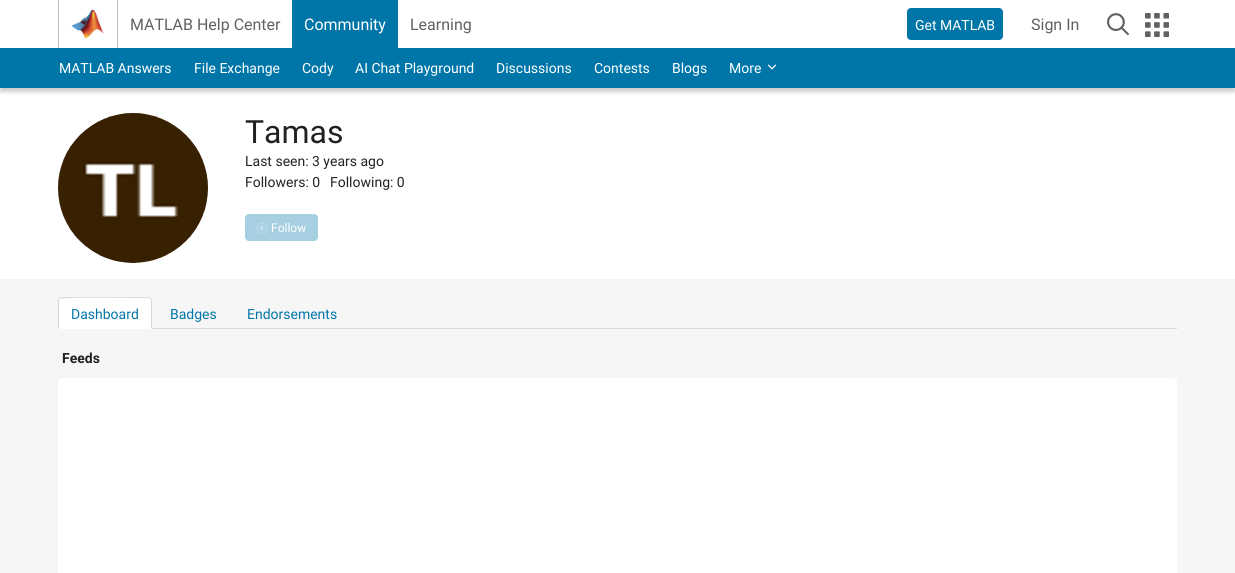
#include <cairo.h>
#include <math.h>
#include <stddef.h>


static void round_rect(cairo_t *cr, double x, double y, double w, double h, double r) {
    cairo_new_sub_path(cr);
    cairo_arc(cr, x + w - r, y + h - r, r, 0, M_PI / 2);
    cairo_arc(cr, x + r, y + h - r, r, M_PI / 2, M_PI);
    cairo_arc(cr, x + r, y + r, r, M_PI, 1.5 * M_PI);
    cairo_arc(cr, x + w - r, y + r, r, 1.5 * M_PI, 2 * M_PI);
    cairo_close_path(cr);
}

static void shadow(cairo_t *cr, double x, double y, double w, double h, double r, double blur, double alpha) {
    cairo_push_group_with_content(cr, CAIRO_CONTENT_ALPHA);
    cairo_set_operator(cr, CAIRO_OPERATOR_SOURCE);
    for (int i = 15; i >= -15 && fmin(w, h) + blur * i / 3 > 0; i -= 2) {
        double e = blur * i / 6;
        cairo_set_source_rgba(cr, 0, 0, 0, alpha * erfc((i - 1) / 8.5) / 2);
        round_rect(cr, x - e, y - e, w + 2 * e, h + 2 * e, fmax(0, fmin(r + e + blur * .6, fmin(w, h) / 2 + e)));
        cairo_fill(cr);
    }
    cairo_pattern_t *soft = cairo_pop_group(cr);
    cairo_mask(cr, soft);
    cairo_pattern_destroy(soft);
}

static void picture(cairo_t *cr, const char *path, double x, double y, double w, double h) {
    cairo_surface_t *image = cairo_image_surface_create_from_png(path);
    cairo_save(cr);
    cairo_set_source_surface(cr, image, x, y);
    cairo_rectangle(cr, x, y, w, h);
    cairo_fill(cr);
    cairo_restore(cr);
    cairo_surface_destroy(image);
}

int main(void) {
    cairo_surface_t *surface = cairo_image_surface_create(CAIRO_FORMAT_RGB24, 1235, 573);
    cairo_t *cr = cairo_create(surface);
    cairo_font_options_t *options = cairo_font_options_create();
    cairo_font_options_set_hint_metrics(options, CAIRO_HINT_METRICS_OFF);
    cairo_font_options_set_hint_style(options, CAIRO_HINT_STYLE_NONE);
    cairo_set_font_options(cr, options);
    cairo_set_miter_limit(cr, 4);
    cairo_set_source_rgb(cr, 1, 1, 1);
    cairo_paint(cr);
    cairo_set_source_rgb(cr, 0.749, 0.749, 0.749);
    cairo_rectangle(cr, 117, 0, 1, 48);
    cairo_fill(cr);
    cairo_rectangle(cr, 58, 0, 1, 48);
    cairo_fill(cr);
    picture(cr, "img1.png", 71, 9, 33, 30);
    cairo_select_font_face(cr, "Roboto", CAIRO_FONT_SLANT_NORMAL, CAIRO_FONT_WEIGHT_NORMAL);
    cairo_set_font_size(cr, 16);
    cairo_set_source_rgb(cr, 0.38, 0.38, 0.38);
    cairo_move_to(cr, 130, 30);
    cairo_show_text(cr, "MATLAB Help Center");
    cairo_set_source_rgb(cr, 0, 0.463, 0.659);
    cairo_rectangle(cr, 292, 0, 106, 48);
    cairo_fill(cr);
    cairo_set_source_rgb(cr, 1, 1, 1);
    cairo_move_to(cr, 304, 30);
    cairo_show_text(cr, "Community");
    cairo_set_source_rgb(cr, 0.38, 0.38, 0.38);
    cairo_move_to(cr, 410, 30);
    cairo_show_text(cr, "Learning");
    cairo_set_source_rgb(cr, 0, 0.463, 0.659);
    round_rect(cr, 907.5, 8.5, 95, 31, 3.5);
    cairo_fill_preserve(cr);
    cairo_set_line_width(cr, 1);
    cairo_stroke(cr);
    cairo_set_font_size(cr, 14);
    cairo_set_source_rgb(cr, 1, 1, 1);
    cairo_move_to(cr, 915, 30);
    cairo_show_text(cr, "Get MATLAB");
    cairo_set_font_size(cr, 16);
    cairo_set_source_rgb(cr, 0.38, 0.38, 0.38);
    cairo_move_to(cr, 1031, 30);
    cairo_show_text(cr, "Sign In");
    picture(cr, "img2.png", 1107, 13, 22, 23);
    picture(cr, "img3.png", 1145, 13, 24, 24);
    cairo_set_source_rgb(cr, 0, 0, 0);
    shadow(cr, 0, 52, 1235, 40, 0, 2, 0.2);
    cairo_set_source_rgb(cr, 0, 0.463, 0.659);
    cairo_rectangle(cr, 0, 48, 1235, 40);
    cairo_fill(cr);
    cairo_set_font_size(cr, 14);
    cairo_set_source_rgb(cr, 1, 1, 1);
    cairo_move_to(cr, 59, 73);
    cairo_show_text(cr, "MATLAB Answers");
    cairo_move_to(cr, 194, 73);
    cairo_show_text(cr, "File Exchange");
    cairo_move_to(cr, 302, 73);
    cairo_show_text(cr, "Cody");
    cairo_move_to(cr, 355, 73);
    cairo_show_text(cr, "AI Chat Playground");
    cairo_move_to(cr, 496, 73);
    cairo_show_text(cr, "Discussions");
    cairo_move_to(cr, 594, 73);
    cairo_show_text(cr, "Contests");
    cairo_move_to(cr, 672, 73);
    cairo_show_text(cr, "Blogs");
    cairo_move_to(cr, 729, 73);
    cairo_show_text(cr, "More");
    picture(cr, "img4.png", 767, 64, 10, 6);
    picture(cr, "img5.png", 58, 113, 150, 150);
    cairo_set_font_size(cr, 32);
    cairo_set_source_rgb(cr, 0.129, 0.129, 0.129);
    cairo_move_to(cr, 245, 143);
    cairo_show_text(cr, "Tamas");
    cairo_set_font_size(cr, 14);
    cairo_move_to(cr, 245, 166);
    cairo_show_text(cr, "Last seen: 3 years ago");
    cairo_move_to(cr, 245, 187);
    cairo_show_text(cr, "Followers: 0");
    cairo_move_to(cr, 330, 187);
    cairo_show_text(cr, "Following: 0");
    cairo_set_source_rgb(cr, 0.651, 0.812, 0.882);
    round_rect(cr, 245.5, 214.5, 72, 26, 3.5);
    cairo_fill_preserve(cr);
    cairo_stroke(cr);
    picture(cr, "img6.png", 256, 222, 12, 12);
    cairo_set_font_size(cr, 12);
    cairo_set_source_rgb(cr, 1, 1, 1);
    cairo_move_to(cr, 271, 232);
    cairo_show_text(cr, "Follow");
    cairo_set_source_rgb(cr, 0.961, 0.961, 0.961);
    cairo_rectangle(cr, 0, 279, 1235, 294);
    cairo_fill(cr);
    cairo_set_source_rgb(cr, 1, 1, 1);
    cairo_new_path(cr);
    cairo_move_to(cr, 62, 297);
    cairo_line_to(cr, 148, 297);
    cairo_curve_to(cr, 150, 297, 152, 299, 152, 301);
    cairo_line_to(cr, 152, 329);
    cairo_line_to(cr, 58, 329);
    cairo_line_to(cr, 58, 301);
    cairo_curve_to(cr, 58, 299, 60, 297, 62, 297);
    cairo_close_path(cr);
    cairo_fill(cr);
    cairo_set_source_rgb(cr, 0.851, 0.851, 0.851);
    cairo_new_path(cr);
    cairo_move_to(cr, 62, 297);
    cairo_line_to(cr, 59, 298);
    cairo_line_to(cr, 60, 299);
    cairo_curve_to(cr, 62, 297, 126, 298, 134, 298);
    cairo_line_to(cr, 148, 298);
    cairo_line_to(cr, 150, 299);
    cairo_line_to(cr, 151, 298);
    cairo_line_to(cr, 148, 297);
    cairo_close_path(cr);
    cairo_fill(cr);
    cairo_new_path(cr);
    cairo_move_to(cr, 152, 329);
    cairo_line_to(cr, 152, 301);
    cairo_curve_to(cr, 152, 300, 151.5, 299, 151, 298);
    cairo_line_to(cr, 150, 299);
    cairo_curve_to(cr, 151, 299, 151, 300, 151, 301);
    cairo_line_to(cr, 151, 328);
    cairo_close_path(cr);
    cairo_fill(cr);
    cairo_set_source_rgb(cr, 1, 1, 1);
    cairo_new_path(cr);
    cairo_move_to(cr, 152, 329);
    cairo_line_to(cr, 151, 328);
    cairo_line_to(cr, 59, 328);
    cairo_line_to(cr, 58, 329);
    cairo_close_path(cr);
    cairo_fill(cr);
    cairo_set_source_rgb(cr, 0.851, 0.851, 0.851);
    cairo_new_path(cr);
    cairo_move_to(cr, 58, 329);
    cairo_line_to(cr, 59, 328);
    cairo_line_to(cr, 59, 301);
    cairo_curve_to(cr, 59, 300, 59, 299, 60, 299);
    cairo_line_to(cr, 59, 298);
    cairo_curve_to(cr, 58.5, 299, 58, 300, 58, 301);
    cairo_close_path(cr);
    cairo_fill(cr);
    cairo_set_font_size(cr, 14);
    cairo_set_source_rgb(cr, 0, 0.463, 0.659);
    cairo_move_to(cr, 71, 319);
    cairo_show_text(cr, "Dashboard");
    cairo_move_to(cr, 170, 319);
    cairo_show_text(cr, "Badges");
    cairo_move_to(cr, 247, 319);
    cairo_show_text(cr, "Endorsements");
    cairo_set_source_rgb(cr, 0.851, 0.851, 0.851);
    cairo_rectangle(cr, 152, 328, 1025, 1);
    cairo_fill(cr);
    cairo_select_font_face(cr, "Roboto", CAIRO_FONT_SLANT_NORMAL, CAIRO_FONT_WEIGHT_BOLD);
    cairo_set_source_rgb(cr, 0.129, 0.129, 0.129);
    cairo_move_to(cr, 62, 363);
    cairo_show_text(cr, "Feeds");
    cairo_set_source_rgb(cr, 1, 1, 1);
    round_rect(cr, 58, 378, 1119, 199, 4);
    cairo_fill(cr);
    cairo_surface_write_to_png(surface, "page.png");
    cairo_font_options_destroy(options);
    cairo_destroy(cr);
    cairo_surface_destroy(surface);
    return 0;
}
